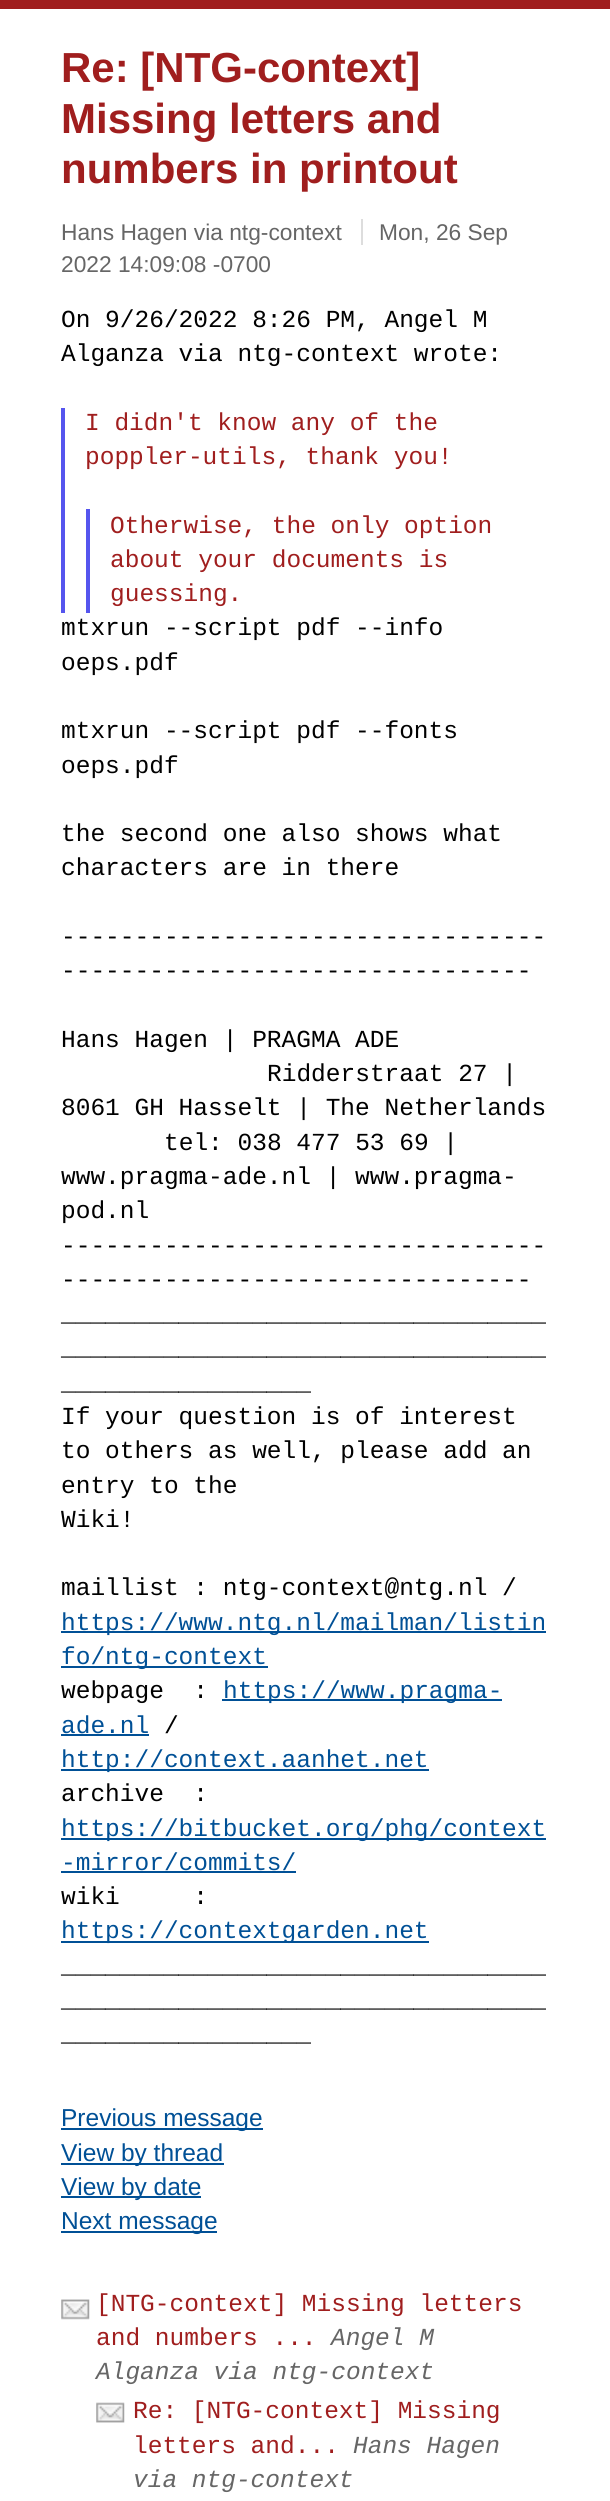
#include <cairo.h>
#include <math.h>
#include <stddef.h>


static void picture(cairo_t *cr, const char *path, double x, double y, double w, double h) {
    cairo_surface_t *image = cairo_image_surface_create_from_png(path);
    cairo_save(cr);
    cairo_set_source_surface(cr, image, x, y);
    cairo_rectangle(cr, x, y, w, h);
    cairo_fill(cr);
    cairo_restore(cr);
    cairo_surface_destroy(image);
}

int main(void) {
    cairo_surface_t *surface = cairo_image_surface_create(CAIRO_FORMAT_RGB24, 610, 2501);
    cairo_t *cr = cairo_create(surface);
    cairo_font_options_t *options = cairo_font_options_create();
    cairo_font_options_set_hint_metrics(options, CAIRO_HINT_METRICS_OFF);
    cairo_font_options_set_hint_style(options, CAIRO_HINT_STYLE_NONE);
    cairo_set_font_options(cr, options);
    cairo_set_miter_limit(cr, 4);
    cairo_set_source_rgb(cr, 1, 1, 1);
    cairo_paint(cr);
    cairo_set_source_rgb(cr, 0.627, 0.118, 0.118);
    cairo_rectangle(cr, 0, 0, 610, 9);
    cairo_fill(cr);
    cairo_select_font_face(cr, "Liberation Sans", CAIRO_FONT_SLANT_NORMAL, CAIRO_FONT_WEIGHT_BOLD);
    cairo_set_font_size(cr, 42);
    cairo_move_to(cr, 61, 82);
    cairo_show_text(cr, "Re: [NTG-context]");
    cairo_move_to(cr, 61, 133);
    cairo_show_text(cr, "Missing letters and");
    cairo_move_to(cr, 61, 183);
    cairo_show_text(cr, "numbers in printout");
    cairo_select_font_face(cr, "Liberation Sans", CAIRO_FONT_SLANT_NORMAL, CAIRO_FONT_WEIGHT_NORMAL);
    cairo_set_font_size(cr, 22.75);
    cairo_set_source_rgb(cr, 0.4, 0.4, 0.4);
    cairo_move_to(cr, 61, 240);
    cairo_show_text(cr, "Hans Hagen via ntg-context");
    cairo_set_source_rgb(cr, 0.867, 0.867, 0.867);
    cairo_rectangle(cr, 361, 219, 2, 26);
    cairo_fill(cr);
    cairo_set_source_rgb(cr, 0.4, 0.4, 0.4);
    cairo_move_to(cr, 379, 240);
    cairo_show_text(cr, "Mon, 26 Sep");
    cairo_move_to(cr, 61, 272);
    cairo_show_text(cr, "2022 14:09:08 -0700");
    cairo_select_font_face(cr, "Liberation Mono", CAIRO_FONT_SLANT_NORMAL, CAIRO_FONT_WEIGHT_NORMAL);
    cairo_set_font_size(cr, 24.5);
    cairo_set_source_rgb(cr, 0, 0, 0);
    cairo_move_to(cr, 61, 327);
    cairo_show_text(cr, "On 9/26/2022 8:26 PM, Angel M");
    cairo_move_to(cr, 61, 361);
    cairo_show_text(cr, "Alganza via ntg-context wrote:");
    cairo_set_source_rgb(cr, 0.333, 0.333, 0.933);
    cairo_rectangle(cr, 61, 408, 4, 205);
    cairo_fill(cr);
    cairo_set_source_rgb(cr, 0.627, 0.118, 0.118);
    cairo_move_to(cr, 85, 430);
    cairo_show_text(cr, "I didn't know any of the");
    cairo_move_to(cr, 85, 464);
    cairo_show_text(cr, "poppler-utils, thank you!");
    cairo_set_source_rgb(cr, 0.333, 0.333, 0.933);
    cairo_rectangle(cr, 86, 509, 4, 104);
    cairo_fill(cr);
    cairo_set_source_rgb(cr, 0.627, 0.118, 0.118);
    cairo_move_to(cr, 110, 533);
    cairo_show_text(cr, "Otherwise, the only option");
    cairo_move_to(cr, 110, 567);
    cairo_show_text(cr, "about your documents is");
    cairo_move_to(cr, 110, 601);
    cairo_show_text(cr, "guessing.");
    cairo_set_source_rgb(cr, 0, 0, 0);
    cairo_move_to(cr, 61, 635);
    cairo_show_text(cr, "mtxrun --script pdf --info");
    cairo_move_to(cr, 61, 670);
    cairo_show_text(cr, "oeps.pdf");
    cairo_move_to(cr, 61, 738);
    cairo_show_text(cr, "mtxrun --script pdf --fonts");
    cairo_move_to(cr, 61, 773);
    cairo_show_text(cr, "oeps.pdf");
    cairo_move_to(cr, 61, 841);
    cairo_show_text(cr, "the second one also shows what");
    cairo_move_to(cr, 61, 875);
    cairo_show_text(cr, "characters are in there");
    cairo_move_to(cr, 61, 944);
    cairo_show_text(cr, "---------------------------------");
    cairo_move_to(cr, 61, 978);
    cairo_show_text(cr, "--------------------------------");
    cairo_move_to(cr, 61, 1047);
    cairo_show_text(cr, "Hans Hagen | PRAGMA ADE");
    cairo_move_to(cr, 267, 1081);
    cairo_show_text(cr, "Ridderstraat 27 |");
    cairo_move_to(cr, 61, 1115);
    cairo_show_text(cr, "8061 GH Hasselt | The Netherlands");
    cairo_move_to(cr, 164, 1150);
    cairo_show_text(cr, "tel: 038 477 53 69 |");
    cairo_move_to(cr, 61, 1184);
    cairo_show_text(cr, "www.pragma-ade.nl | www.pragma-");
    cairo_move_to(cr, 61, 1218);
    cairo_show_text(cr, "pod.nl");
    cairo_move_to(cr, 61, 1253);
    cairo_show_text(cr, "---------------------------------");
    cairo_move_to(cr, 61, 1287);
    cairo_show_text(cr, "--------------------------------");
    cairo_move_to(cr, 61, 1321);
    cairo_show_text(cr, "_________________________________");
    cairo_move_to(cr, 61, 1355);
    cairo_show_text(cr, "_________________________________");
    cairo_move_to(cr, 61, 1390);
    cairo_show_text(cr, "_________________");
    cairo_move_to(cr, 61, 1424);
    cairo_show_text(cr, "If your question is of interest");
    cairo_move_to(cr, 61, 1458);
    cairo_show_text(cr, "to others as well, please add an");
    cairo_move_to(cr, 61, 1493);
    cairo_show_text(cr, "entry to the");
    cairo_move_to(cr, 61, 1527);
    cairo_show_text(cr, "Wiki!");
    cairo_move_to(cr, 61, 1595);
    cairo_show_text(cr, "maillist : ntg-context@ntg.nl /");
    cairo_set_source_rgb(cr, 0, 0.314, 0.588);
    cairo_rectangle(cr, 61, 1631, 485, 2);
    cairo_fill(cr);
    cairo_move_to(cr, 61, 1630);
    cairo_show_text(cr, "https://www.ntg.nl/mailman/listin");
    cairo_rectangle(cr, 61, 1666, 207, 2);
    cairo_fill(cr);
    cairo_move_to(cr, 61, 1664);
    cairo_show_text(cr, "fo/ntg-context");
    cairo_set_source_rgb(cr, 0, 0, 0);
    cairo_move_to(cr, 61, 1698);
    cairo_show_text(cr, "webpage  :");
    cairo_set_source_rgb(cr, 0, 0.314, 0.588);
    cairo_rectangle(cr, 222, 1699, 280, 2);
    cairo_fill(cr);
    cairo_move_to(cr, 223, 1698);
    cairo_show_text(cr, "https://www.pragma-");
    cairo_move_to(cr, 61, 1733);
    cairo_show_text(cr, "ade.nl");
    cairo_rectangle(cr, 61, 1734, 88, 2);
    cairo_fill(cr);
    cairo_set_source_rgb(cr, 0, 0, 0);
    cairo_move_to(cr, 164, 1733);
    cairo_show_text(cr, "/");
    cairo_set_source_rgb(cr, 0, 0.314, 0.588);
    cairo_rectangle(cr, 61, 1769, 368, 2);
    cairo_fill(cr);
    cairo_move_to(cr, 61, 1767);
    cairo_show_text(cr, "http://context.aanhet.net");
    cairo_set_source_rgb(cr, 0, 0, 0);
    cairo_move_to(cr, 61, 1801);
    cairo_show_text(cr, "archive  :");
    cairo_set_source_rgb(cr, 0, 0.314, 0.588);
    cairo_rectangle(cr, 61, 1838, 485, 2);
    cairo_fill(cr);
    cairo_move_to(cr, 61, 1836);
    cairo_show_text(cr, "https://bitbucket.org/phg/context");
    cairo_move_to(cr, 61, 1870);
    cairo_show_text(cr, "-mirror/commits/");
    cairo_rectangle(cr, 61, 1871, 235, 2);
    cairo_fill(cr);
    cairo_set_source_rgb(cr, 0, 0, 0);
    cairo_move_to(cr, 61, 1904);
    cairo_show_text(cr, "wiki     :");
    cairo_set_source_rgb(cr, 0, 0.314, 0.588);
    cairo_rectangle(cr, 61, 1941, 368, 2);
    cairo_fill(cr);
    cairo_move_to(cr, 61, 1938);
    cairo_show_text(cr, "https://contextgarden.net");
    cairo_set_source_rgb(cr, 0, 0, 0);
    cairo_move_to(cr, 61, 1973);
    cairo_show_text(cr, "_________________________________");
    cairo_move_to(cr, 61, 2007);
    cairo_show_text(cr, "_________________________________");
    cairo_move_to(cr, 61, 2041);
    cairo_show_text(cr, "_________________");
    cairo_set_source_rgb(cr, 0, 0.314, 0.588);
    cairo_rectangle(cr, 61, 2128, 202, 2);
    cairo_fill(cr);
    cairo_select_font_face(cr, "Liberation Sans", CAIRO_FONT_SLANT_NORMAL, CAIRO_FONT_WEIGHT_NORMAL);
    cairo_move_to(cr, 61, 2126);
    cairo_show_text(cr, "Previous message");
    cairo_rectangle(cr, 61, 2163, 163, 2);
    cairo_fill(cr);
    cairo_move_to(cr, 61, 2161);
    cairo_show_text(cr, "View by thread");
    cairo_rectangle(cr, 61, 2196, 140, 2);
    cairo_fill(cr);
    cairo_move_to(cr, 61, 2195);
    cairo_show_text(cr, "View by date");
    cairo_rectangle(cr, 61, 2231, 156, 2);
    cairo_fill(cr);
    cairo_move_to(cr, 61, 2229);
    cairo_show_text(cr, "Next message");
    picture(cr, "img1.png", 61, 2299, 29, 21);
    cairo_select_font_face(cr, "Liberation Mono", CAIRO_FONT_SLANT_NORMAL, CAIRO_FONT_WEIGHT_NORMAL);
    cairo_set_source_rgb(cr, 0.627, 0.118, 0.118);
    cairo_move_to(cr, 96, 2311);
    cairo_show_text(cr, "[NTG-context] Missing letters");
    cairo_move_to(cr, 96, 2345);
    cairo_show_text(cr, "and numbers ...");
    cairo_select_font_face(cr, "Liberation Mono", CAIRO_FONT_SLANT_ITALIC, CAIRO_FONT_WEIGHT_NORMAL);
    cairo_set_source_rgb(cr, 0.4, 0.4, 0.4);
    cairo_move_to(cr, 331, 2345);
    cairo_show_text(cr, "Angel M");
    cairo_move_to(cr, 96, 2379);
    cairo_show_text(cr, "Alganza via ntg-context");
    picture(cr, "img2.png", 96, 2402, 29, 21);
    cairo_select_font_face(cr, "Liberation Mono", CAIRO_FONT_SLANT_NORMAL, CAIRO_FONT_WEIGHT_NORMAL);
    cairo_set_source_rgb(cr, 0.627, 0.118, 0.118);
    cairo_move_to(cr, 133, 2418);
    cairo_show_text(cr, "Re: [NTG-context] Missing");
    cairo_move_to(cr, 133, 2453);
    cairo_show_text(cr, "letters and...");
    cairo_select_font_face(cr, "Liberation Mono", CAIRO_FONT_SLANT_ITALIC, CAIRO_FONT_WEIGHT_NORMAL);
    cairo_set_source_rgb(cr, 0.4, 0.4, 0.4);
    cairo_move_to(cr, 353, 2453);
    cairo_show_text(cr, "Hans Hagen");
    cairo_move_to(cr, 133, 2487);
    cairo_show_text(cr, "via ntg-context");
    cairo_surface_write_to_png(surface, "page.png");
    cairo_font_options_destroy(options);
    cairo_destroy(cr);
    cairo_surface_destroy(surface);
    return 0;
}
